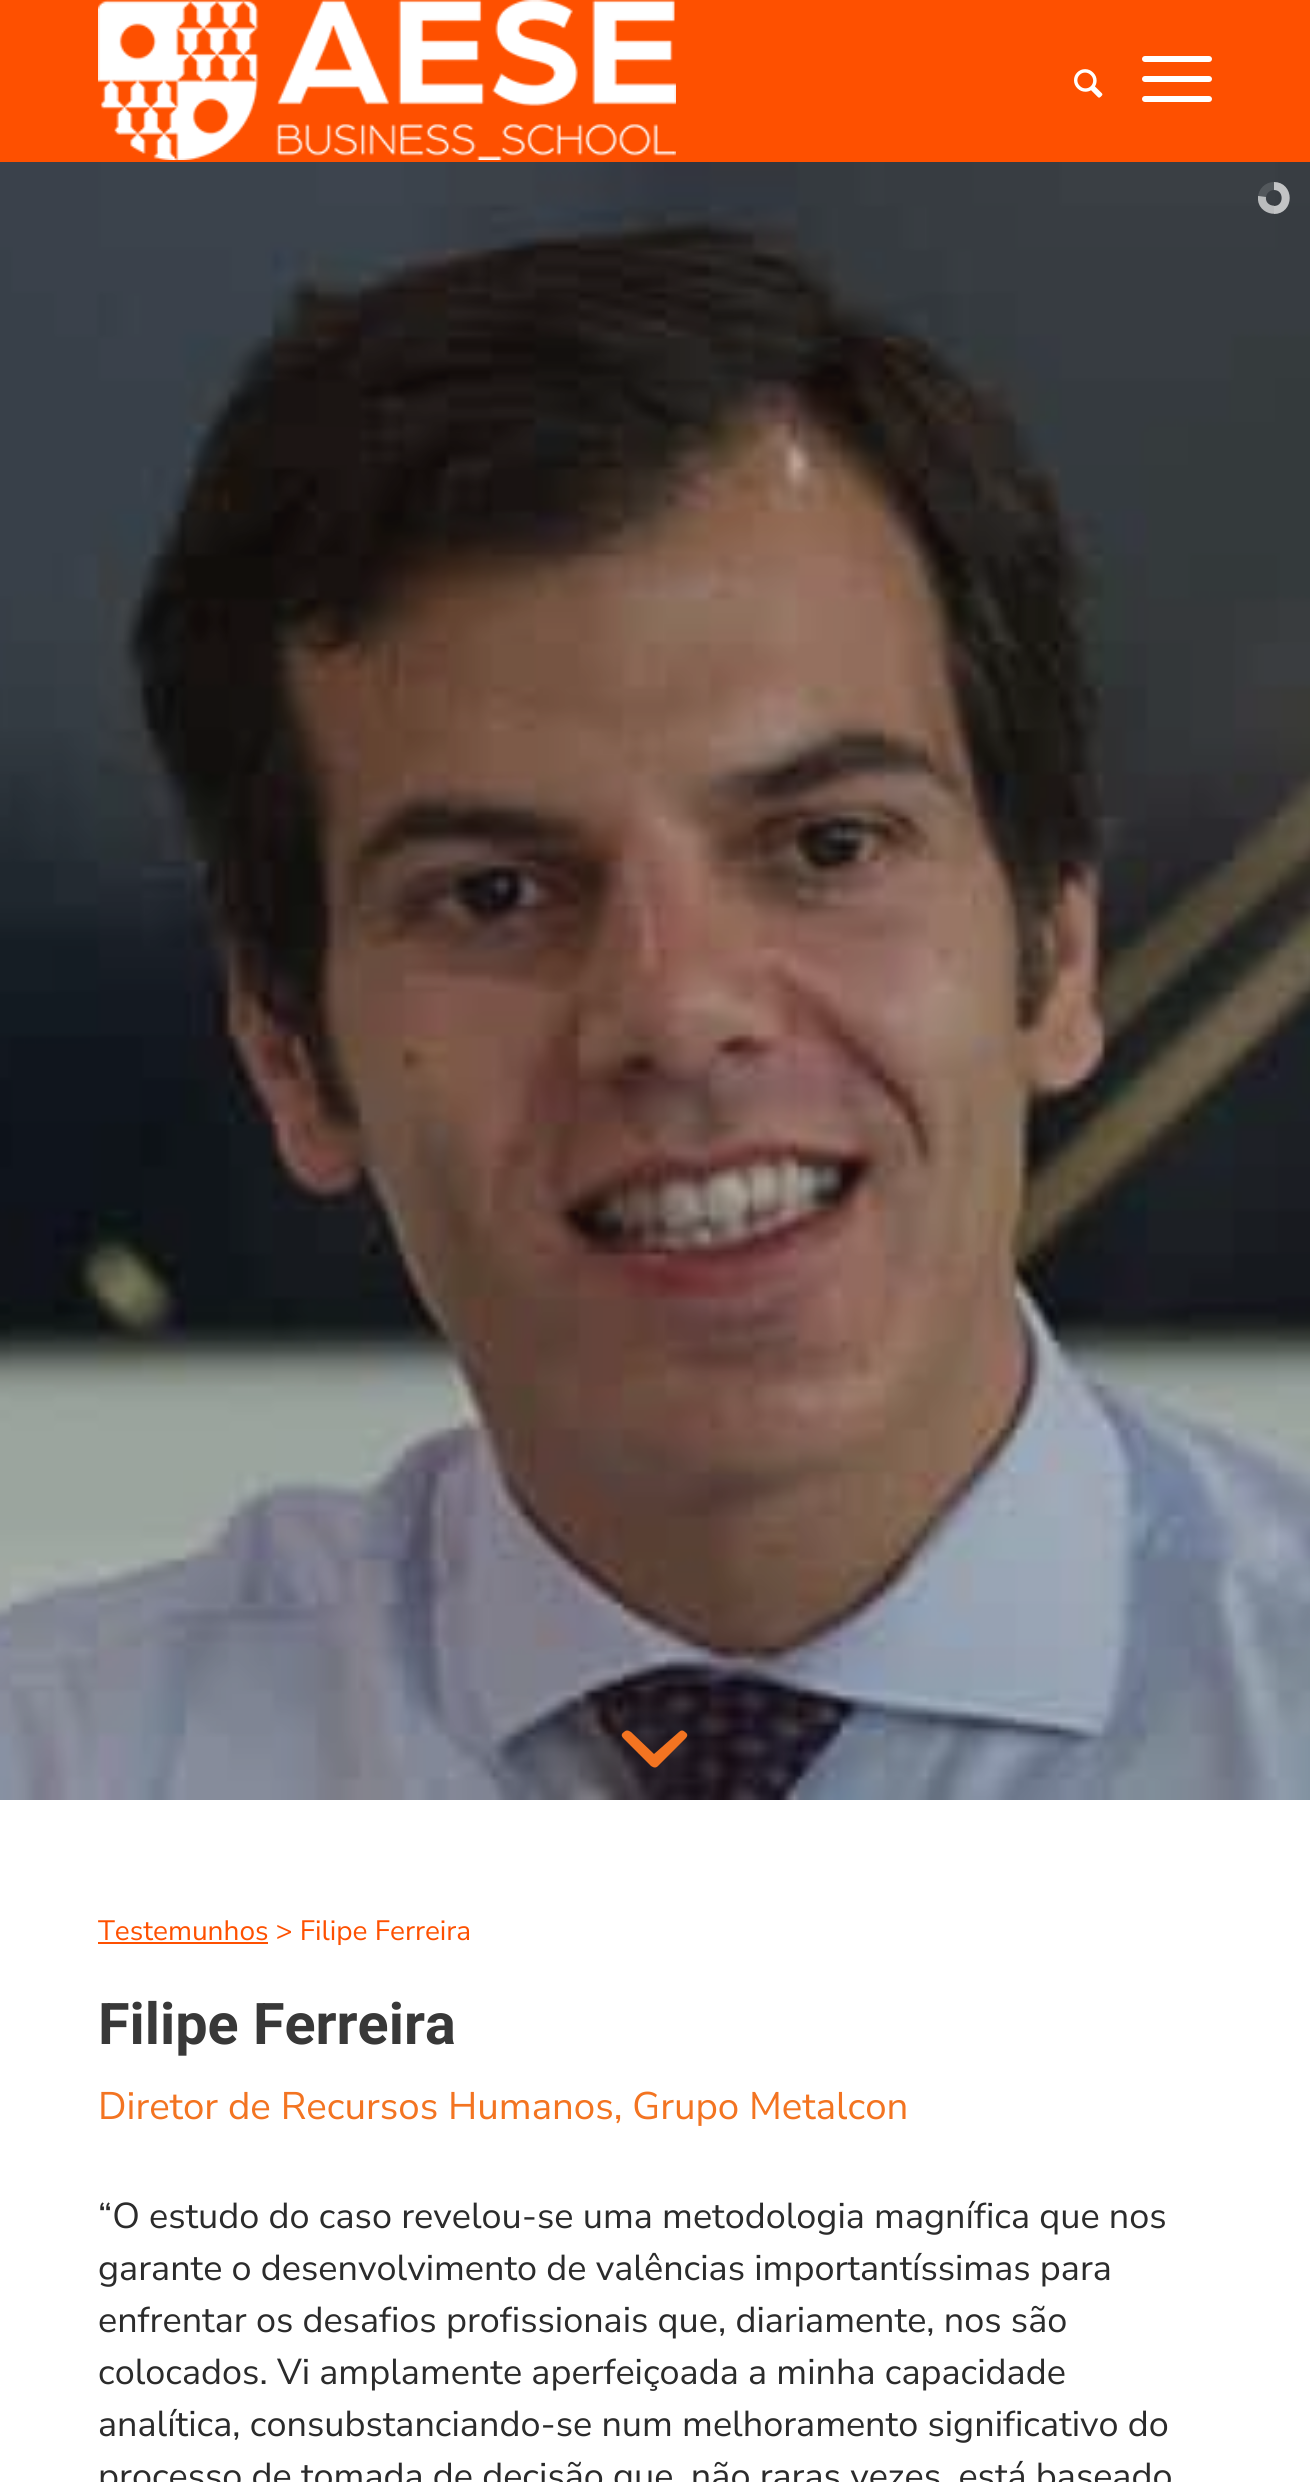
#include <cairo.h>
#include <math.h>
#include <stddef.h>


static void round_rect(cairo_t *cr, double x, double y, double w, double h, double r) {
    cairo_new_sub_path(cr);
    cairo_arc(cr, x + w - r, y + h - r, r, 0, M_PI / 2);
    cairo_arc(cr, x + r, y + h - r, r, M_PI / 2, M_PI);
    cairo_arc(cr, x + r, y + r, r, M_PI, 1.5 * M_PI);
    cairo_arc(cr, x + w - r, y + r, r, 1.5 * M_PI, 2 * M_PI);
    cairo_close_path(cr);
}

static void picture(cairo_t *cr, const char *path, double x, double y, double w, double h) {
    cairo_surface_t *image = cairo_image_surface_create_from_png(path);
    cairo_save(cr);
    cairo_set_source_surface(cr, image, x, y);
    cairo_rectangle(cr, x, y, w, h);
    cairo_fill(cr);
    cairo_restore(cr);
    cairo_surface_destroy(image);
}

int main(void) {
    cairo_surface_t *surface = cairo_image_surface_create(CAIRO_FORMAT_RGB24, 1310, 2482);
    cairo_t *cr = cairo_create(surface);
    cairo_font_options_t *options = cairo_font_options_create();
    cairo_font_options_set_hint_metrics(options, CAIRO_HINT_METRICS_OFF);
    cairo_font_options_set_hint_style(options, CAIRO_HINT_STYLE_NONE);
    cairo_set_font_options(cr, options);
    cairo_set_miter_limit(cr, 4);
    cairo_set_source_rgb(cr, 1, 1, 1);
    cairo_paint(cr);
    cairo_set_source_rgb(cr, 0.996, 0.314, 0);
    cairo_rectangle(cr, 0, 0, 1310, 162);
    cairo_fill(cr);
    picture(cr, "img1.png", 98, 0, 578, 160);
    picture(cr, "img2.png", 1074, 69, 29, 29);
    cairo_set_source_rgb(cr, 1, 1, 1);
    round_rect(cr, 1142, 76, 70, 6, 3);
    cairo_fill(cr);
    round_rect(cr, 1142, 56, 70, 6, 3);
    cairo_fill(cr);
    round_rect(cr, 1142, 96, 70, 6, 3);
    cairo_fill(cr);
    picture(cr, "img3.png", 0, 162, 1310, 1638);
    cairo_arc(cr, 1274, 198, 12, 0, 2 * M_PI);
    cairo_set_source_rgba(cr, 1, 1, 1, 0.13);
    cairo_set_line_width(cr, 8);
    cairo_stroke(cr);
    cairo_save(cr);
    cairo_rectangle(cr, 1258, 182, 16, 32);
    cairo_clip(cr);
    cairo_new_path(cr);
    cairo_move_to(cr, 1290, 200);
    cairo_line_to(cr, 1288, 216);
    cairo_line_to(cr, 1256, 212);
    cairo_line_to(cr, 1258, 196);
    cairo_close_path(cr);
    cairo_clip(cr);
    cairo_new_path(cr);
    cairo_move_to(cr, 1286, 199.5);
    cairo_curve_to(cr, 1284, 215, 1260, 212, 1262, 196.5);
    cairo_curve_to(cr, 1264, 181, 1288, 184, 1286, 199.5);
    cairo_close_path(cr);
    cairo_set_source_rgb(cr, 0.729, 0.737, 0.741);
    cairo_stroke(cr);
    cairo_restore(cr);
    cairo_save(cr);
    cairo_rectangle(cr, 1274, 182, 16, 32);
    cairo_clip(cr);
    cairo_new_path(cr);
    cairo_move_to(cr, 1274, 210);
    cairo_curve_to(cr, 1258.5, 210, 1258.5, 186, 1274, 186);
    cairo_curve_to(cr, 1289.5, 186, 1289.5, 210, 1274, 210);
    cairo_close_path(cr);
    cairo_set_source_rgba(cr, 1, 1, 1, 0.65);
    cairo_stroke(cr);
    cairo_restore(cr);
    cairo_set_source_rgb(cr, 0.953, 0.455, 0.129);
    cairo_new_path(cr);
    cairo_move_to(cr, 679, 1732);
    cairo_curve_to(cr, 681, 1730, 683, 1730, 685, 1732);
    cairo_curve_to(cr, 688, 1734, 688, 1736, 685, 1739);
    cairo_line_to(cr, 658, 1766);
    cairo_curve_to(cr, 656, 1768, 654, 1768, 651, 1766);
    cairo_line_to(cr, 624, 1739);
    cairo_curve_to(cr, 621, 1736, 621, 1734, 624, 1732);
    cairo_curve_to(cr, 626, 1730, 628, 1730, 631, 1732);
    cairo_line_to(cr, 654, 1754);
    cairo_close_path(cr);
    cairo_fill(cr);
    cairo_set_source_rgb(cr, 0.996, 0.314, 0);
    cairo_rectangle(cr, 98, 1942, 170, 2);
    cairo_fill(cr);
    cairo_select_font_face(cr, "Nunito Sans", CAIRO_FONT_SLANT_NORMAL, CAIRO_FONT_WEIGHT_NORMAL);
    cairo_set_font_size(cr, 28);
    cairo_move_to(cr, 98, 1940);
    cairo_show_text(cr, "Testemunhos > Filipe Ferreira");
    cairo_select_font_face(cr, "Roboto", CAIRO_FONT_SLANT_NORMAL, CAIRO_FONT_WEIGHT_BOLD);
    cairo_set_font_size(cr, 57.5);
    cairo_set_source_rgb(cr, 0.22, 0.22, 0.22);
    cairo_move_to(cr, 98, 2044);
    cairo_show_text(cr, "Filipe Ferreira");
    cairo_select_font_face(cr, "Nunito Sans", CAIRO_FONT_SLANT_NORMAL, CAIRO_FONT_WEIGHT_NORMAL);
    cairo_set_font_size(cr, 38.4);
    cairo_set_source_rgb(cr, 0.953, 0.455, 0.129);
    cairo_move_to(cr, 98, 2119);
    cairo_show_text(cr, "Diretor de Recursos Humanos, Grupo Metalcon");
    cairo_set_font_size(cr, 36);
    cairo_set_source_rgb(cr, 0.169, 0.169, 0.169);
    cairo_move_to(cr, 98, 2228);
    cairo_show_text(cr, "“O estudo do caso revelou-se uma metodologia magnífica que nos");
    cairo_move_to(cr, 98, 2280);
    cairo_show_text(cr, "garante o desenvolvimento de valências importantíssimas para");
    cairo_move_to(cr, 98, 2332);
    cairo_show_text(cr, "enfrentar os desafios profissionais que, diariamente, nos são");
    cairo_move_to(cr, 98, 2384);
    cairo_show_text(cr, "colocados. Vi amplamente aperfeiçoada a minha capacidade");
    cairo_move_to(cr, 98, 2436);
    cairo_show_text(cr, "analítica, consubstanciando-se num melhoramento significativo do");
    cairo_move_to(cr, 98, 2488);
    cairo_show_text(cr, "processo de tomada de decisão que, não raras vezes, está baseado");
    cairo_surface_write_to_png(surface, "page.png");
    cairo_font_options_destroy(options);
    cairo_destroy(cr);
    cairo_surface_destroy(surface);
    return 0;
}
